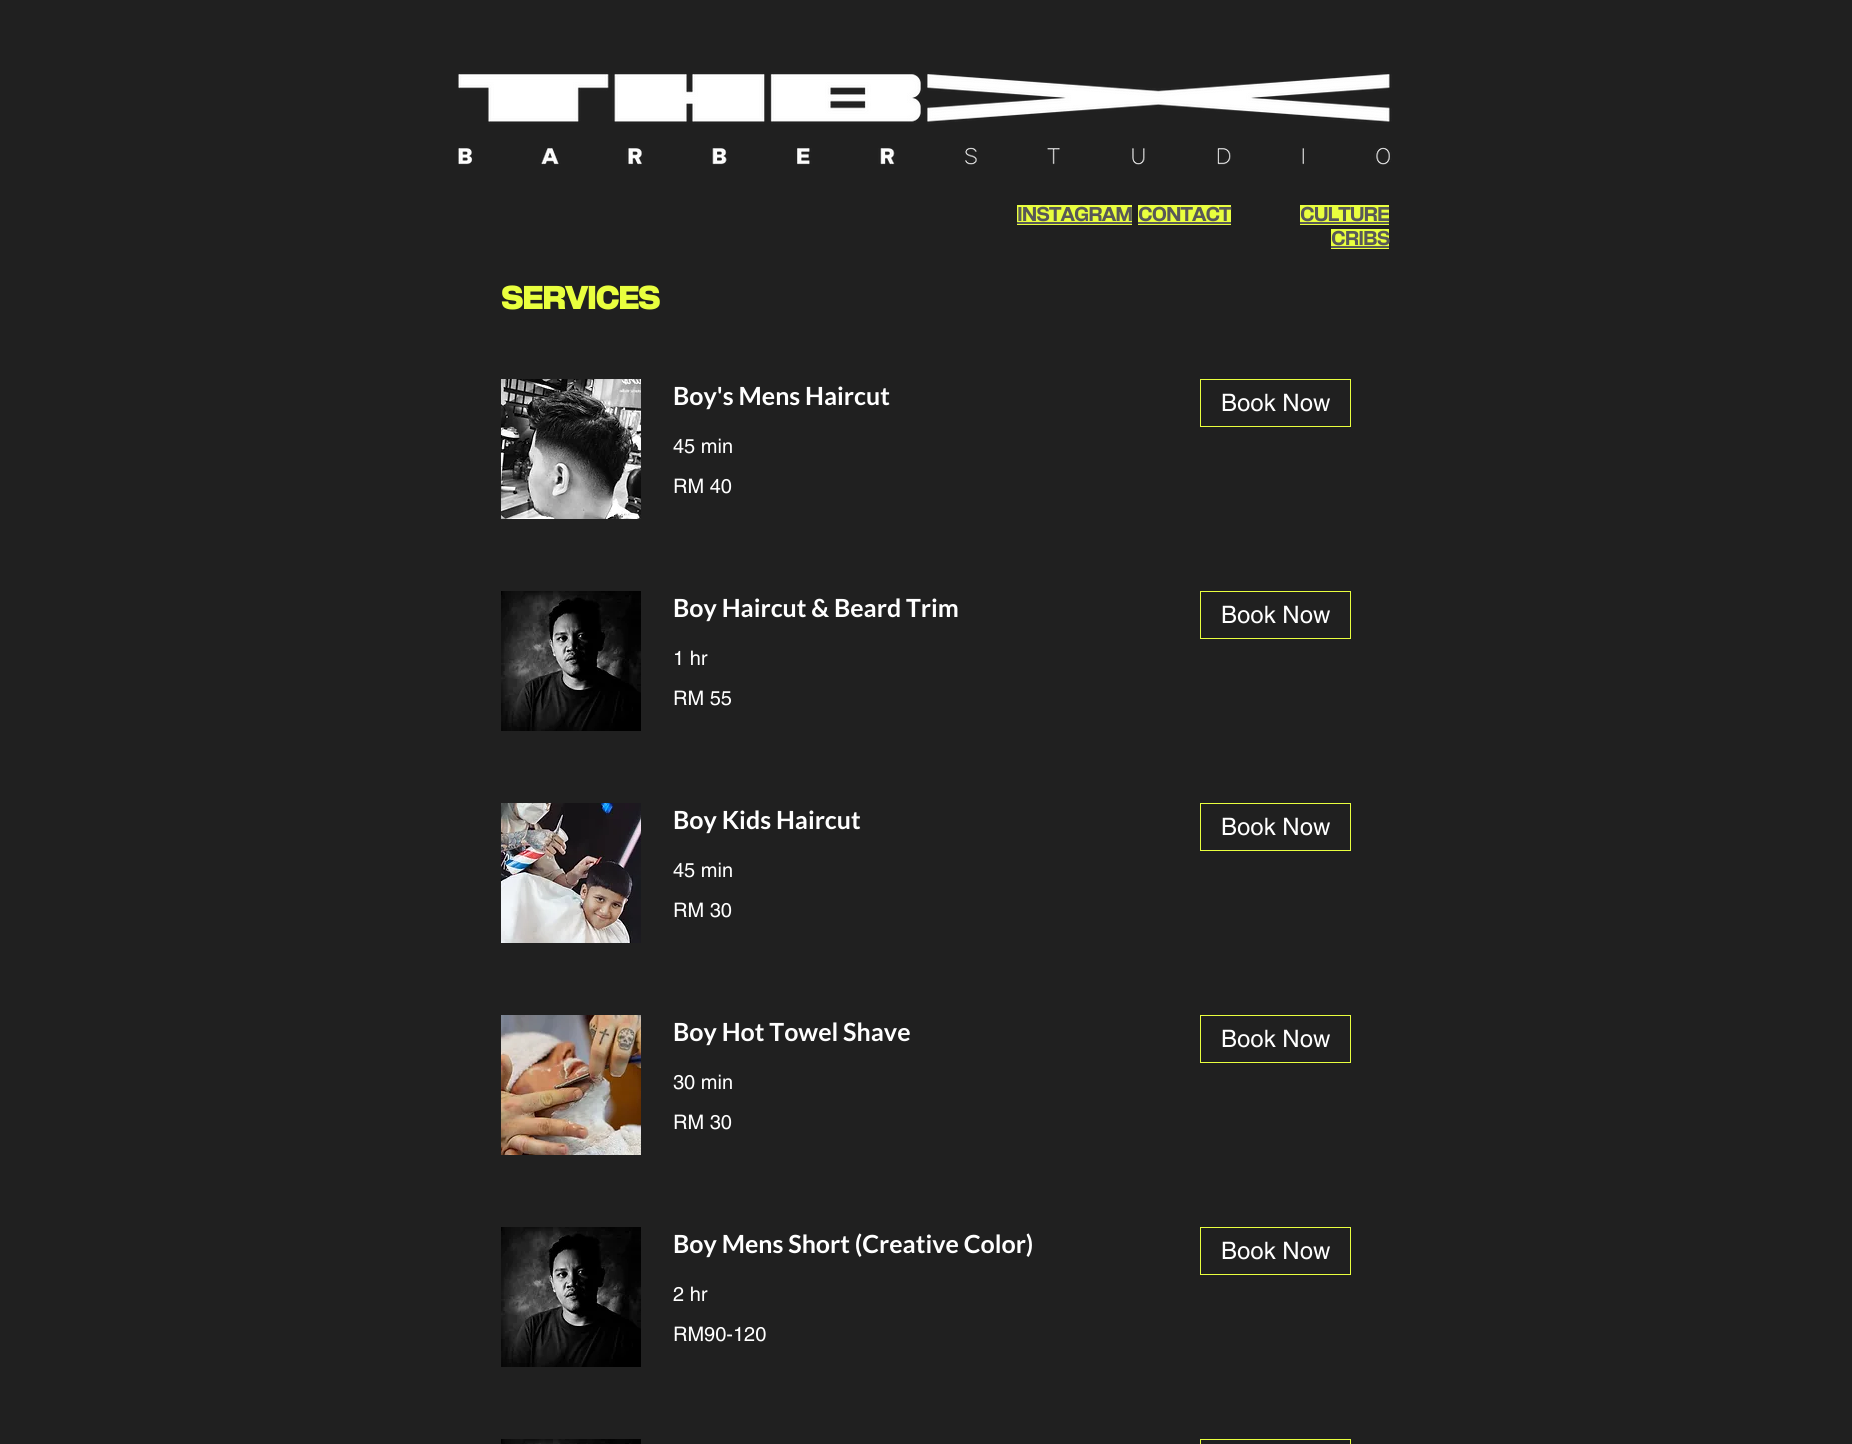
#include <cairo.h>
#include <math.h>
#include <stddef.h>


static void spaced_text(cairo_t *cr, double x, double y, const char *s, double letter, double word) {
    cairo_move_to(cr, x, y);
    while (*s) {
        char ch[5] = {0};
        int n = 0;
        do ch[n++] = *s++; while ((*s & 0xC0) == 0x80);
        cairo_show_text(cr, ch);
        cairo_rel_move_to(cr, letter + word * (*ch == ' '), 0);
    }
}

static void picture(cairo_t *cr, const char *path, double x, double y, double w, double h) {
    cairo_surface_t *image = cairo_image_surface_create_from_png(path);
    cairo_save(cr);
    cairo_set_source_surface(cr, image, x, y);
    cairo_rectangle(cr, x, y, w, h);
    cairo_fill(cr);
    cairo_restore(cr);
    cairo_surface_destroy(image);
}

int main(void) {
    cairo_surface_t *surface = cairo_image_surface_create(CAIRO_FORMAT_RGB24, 1852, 1444);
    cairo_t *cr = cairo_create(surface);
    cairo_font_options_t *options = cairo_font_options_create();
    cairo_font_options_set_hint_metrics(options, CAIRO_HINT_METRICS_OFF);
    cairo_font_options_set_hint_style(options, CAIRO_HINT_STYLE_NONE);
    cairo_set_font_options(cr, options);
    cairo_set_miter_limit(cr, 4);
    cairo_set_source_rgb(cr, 0.125, 0.125, 0.125);
    cairo_paint(cr);
    picture(cr, "img1.png", 458, 72, 934, 93);
    cairo_set_source_rgb(cr, 0.914, 1, 0.243);
    cairo_rectangle(cr, 1017, 205, 115, 20);
    cairo_fill(cr);
    cairo_select_font_face(cr, "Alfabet", CAIRO_FONT_SLANT_NORMAL, CAIRO_FONT_WEIGHT_BOLD);
    cairo_set_font_size(cr, 20);
    cairo_set_source_rgb(cr, 0.345, 0.345, 0.345);
    spaced_text(cr, 1017, 221, "INSTAGRAM", -1, 0);
    cairo_rectangle(cr, 1017, 222, 115, 2);
    cairo_fill(cr);
    cairo_set_source_rgb(cr, 0.914, 1, 0.243);
    cairo_rectangle(cr, 1138, 205, 93, 20);
    cairo_fill(cr);
    cairo_set_source_rgb(cr, 0.345, 0.345, 0.345);
    spaced_text(cr, 1138, 221, "CONTACT", -1, 0);
    cairo_rectangle(cr, 1138, 222, 93, 2);
    cairo_fill(cr);
    cairo_set_source_rgb(cr, 0.914, 1, 0.243);
    cairo_rectangle(cr, 1300, 205, 89, 20);
    cairo_fill(cr);
    cairo_set_source_rgb(cr, 0.345, 0.345, 0.345);
    spaced_text(cr, 1300, 221, "CULTURE", -1, 0);
    cairo_rectangle(cr, 1300, 222, 89, 2);
    cairo_fill(cr);
    cairo_set_source_rgb(cr, 0.914, 1, 0.243);
    cairo_rectangle(cr, 1331, 229, 58, 20);
    cairo_fill(cr);
    cairo_set_source_rgb(cr, 0.345, 0.345, 0.345);
    spaced_text(cr, 1331, 245, "CRIBS", -1, 0);
    cairo_rectangle(cr, 1331, 246, 58, 2);
    cairo_fill(cr);
    cairo_select_font_face(cr, "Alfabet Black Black", CAIRO_FONT_SLANT_NORMAL, CAIRO_FONT_WEIGHT_NORMAL);
    cairo_set_font_size(cr, 33);
    cairo_set_source_rgb(cr, 0.914, 1, 0.243);
    spaced_text(cr, 501, 309, "SERVICES", -1.75, 0);
    picture(cr, "img2.png", 501, 379, 140, 140);
    cairo_select_font_face(cr, "Lato", CAIRO_FONT_SLANT_NORMAL, CAIRO_FONT_WEIGHT_BOLD);
    cairo_set_font_size(cr, 25);
    cairo_set_source_rgb(cr, 1, 1, 1);
    cairo_move_to(cr, 673, 405);
    cairo_show_text(cr, "Boy's Mens Haircut");
    cairo_select_font_face(cr, "helvetica", CAIRO_FONT_SLANT_NORMAL, CAIRO_FONT_WEIGHT_NORMAL);
    cairo_set_font_size(cr, 20);
    cairo_move_to(cr, 673, 453);
    cairo_show_text(cr, "45 min");
    cairo_move_to(cr, 673, 493);
    cairo_show_text(cr, "RM 40");
    cairo_rectangle(cr, 1200.5, 379.5, 150, 47);
    cairo_set_source_rgb(cr, 0.914, 1, 0.243);
    cairo_set_line_width(cr, 1);
    cairo_stroke(cr);
    cairo_set_font_size(cr, 24);
    cairo_set_source_rgb(cr, 1, 1, 1);
    cairo_move_to(cr, 1221, 411);
    cairo_show_text(cr, "Book Now");
    picture(cr, "img3.png", 501, 591, 140, 140);
    cairo_select_font_face(cr, "Lato", CAIRO_FONT_SLANT_NORMAL, CAIRO_FONT_WEIGHT_BOLD);
    cairo_set_font_size(cr, 25);
    cairo_move_to(cr, 673, 617);
    cairo_show_text(cr, "Boy Haircut & Beard Trim");
    cairo_select_font_face(cr, "helvetica", CAIRO_FONT_SLANT_NORMAL, CAIRO_FONT_WEIGHT_NORMAL);
    cairo_set_font_size(cr, 20);
    cairo_move_to(cr, 673, 665);
    cairo_show_text(cr, "1 hr");
    cairo_move_to(cr, 673, 705);
    cairo_show_text(cr, "RM 55");
    cairo_rectangle(cr, 1200.5, 591.5, 150, 47);
    cairo_set_source_rgb(cr, 0.914, 1, 0.243);
    cairo_stroke(cr);
    cairo_set_font_size(cr, 24);
    cairo_set_source_rgb(cr, 1, 1, 1);
    cairo_move_to(cr, 1221, 623);
    cairo_show_text(cr, "Book Now");
    picture(cr, "img4.png", 501, 803, 140, 140);
    cairo_select_font_face(cr, "Lato", CAIRO_FONT_SLANT_NORMAL, CAIRO_FONT_WEIGHT_BOLD);
    cairo_set_font_size(cr, 25);
    cairo_move_to(cr, 673, 829);
    cairo_show_text(cr, "Boy Kids Haircut");
    cairo_select_font_face(cr, "helvetica", CAIRO_FONT_SLANT_NORMAL, CAIRO_FONT_WEIGHT_NORMAL);
    cairo_set_font_size(cr, 20);
    cairo_move_to(cr, 673, 877);
    cairo_show_text(cr, "45 min");
    cairo_move_to(cr, 673, 917);
    cairo_show_text(cr, "RM 30");
    cairo_rectangle(cr, 1200.5, 803.5, 150, 47);
    cairo_set_source_rgb(cr, 0.914, 1, 0.243);
    cairo_stroke(cr);
    cairo_set_font_size(cr, 24);
    cairo_set_source_rgb(cr, 1, 1, 1);
    cairo_move_to(cr, 1221, 835);
    cairo_show_text(cr, "Book Now");
    picture(cr, "img5.png", 501, 1015, 140, 140);
    cairo_select_font_face(cr, "Lato", CAIRO_FONT_SLANT_NORMAL, CAIRO_FONT_WEIGHT_BOLD);
    cairo_set_font_size(cr, 25);
    cairo_move_to(cr, 673, 1041);
    cairo_show_text(cr, "Boy Hot Towel Shave");
    cairo_select_font_face(cr, "helvetica", CAIRO_FONT_SLANT_NORMAL, CAIRO_FONT_WEIGHT_NORMAL);
    cairo_set_font_size(cr, 20);
    cairo_move_to(cr, 673, 1089);
    cairo_show_text(cr, "30 min");
    cairo_move_to(cr, 673, 1129);
    cairo_show_text(cr, "RM 30");
    cairo_rectangle(cr, 1200.5, 1015.5, 150, 47);
    cairo_set_source_rgb(cr, 0.914, 1, 0.243);
    cairo_stroke(cr);
    cairo_set_font_size(cr, 24);
    cairo_set_source_rgb(cr, 1, 1, 1);
    cairo_move_to(cr, 1221, 1047);
    cairo_show_text(cr, "Book Now");
    picture(cr, "img3.png", 501, 1227, 140, 140);
    cairo_select_font_face(cr, "Lato", CAIRO_FONT_SLANT_NORMAL, CAIRO_FONT_WEIGHT_BOLD);
    cairo_set_font_size(cr, 25);
    cairo_move_to(cr, 673, 1253);
    cairo_show_text(cr, "Boy Mens Short (Creative Color)");
    cairo_select_font_face(cr, "helvetica", CAIRO_FONT_SLANT_NORMAL, CAIRO_FONT_WEIGHT_NORMAL);
    cairo_set_font_size(cr, 20);
    cairo_move_to(cr, 673, 1301);
    cairo_show_text(cr, "2 hr");
    cairo_move_to(cr, 673, 1341);
    cairo_show_text(cr, "RM90-120");
    cairo_rectangle(cr, 1200.5, 1227.5, 150, 47);
    cairo_set_source_rgb(cr, 0.914, 1, 0.243);
    cairo_stroke(cr);
    cairo_set_font_size(cr, 24);
    cairo_set_source_rgb(cr, 1, 1, 1);
    cairo_move_to(cr, 1221, 1259);
    cairo_show_text(cr, "Book Now");
    picture(cr, "img6.png", 501, 1439, 140, 5);
    cairo_rectangle(cr, 1200.5, 1439.5, 150, 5);
    cairo_set_source_rgb(cr, 0.914, 1, 0.243);
    cairo_stroke(cr);
    cairo_surface_write_to_png(surface, "page.png");
    cairo_font_options_destroy(options);
    cairo_destroy(cr);
    cairo_surface_destroy(surface);
    return 0;
}
